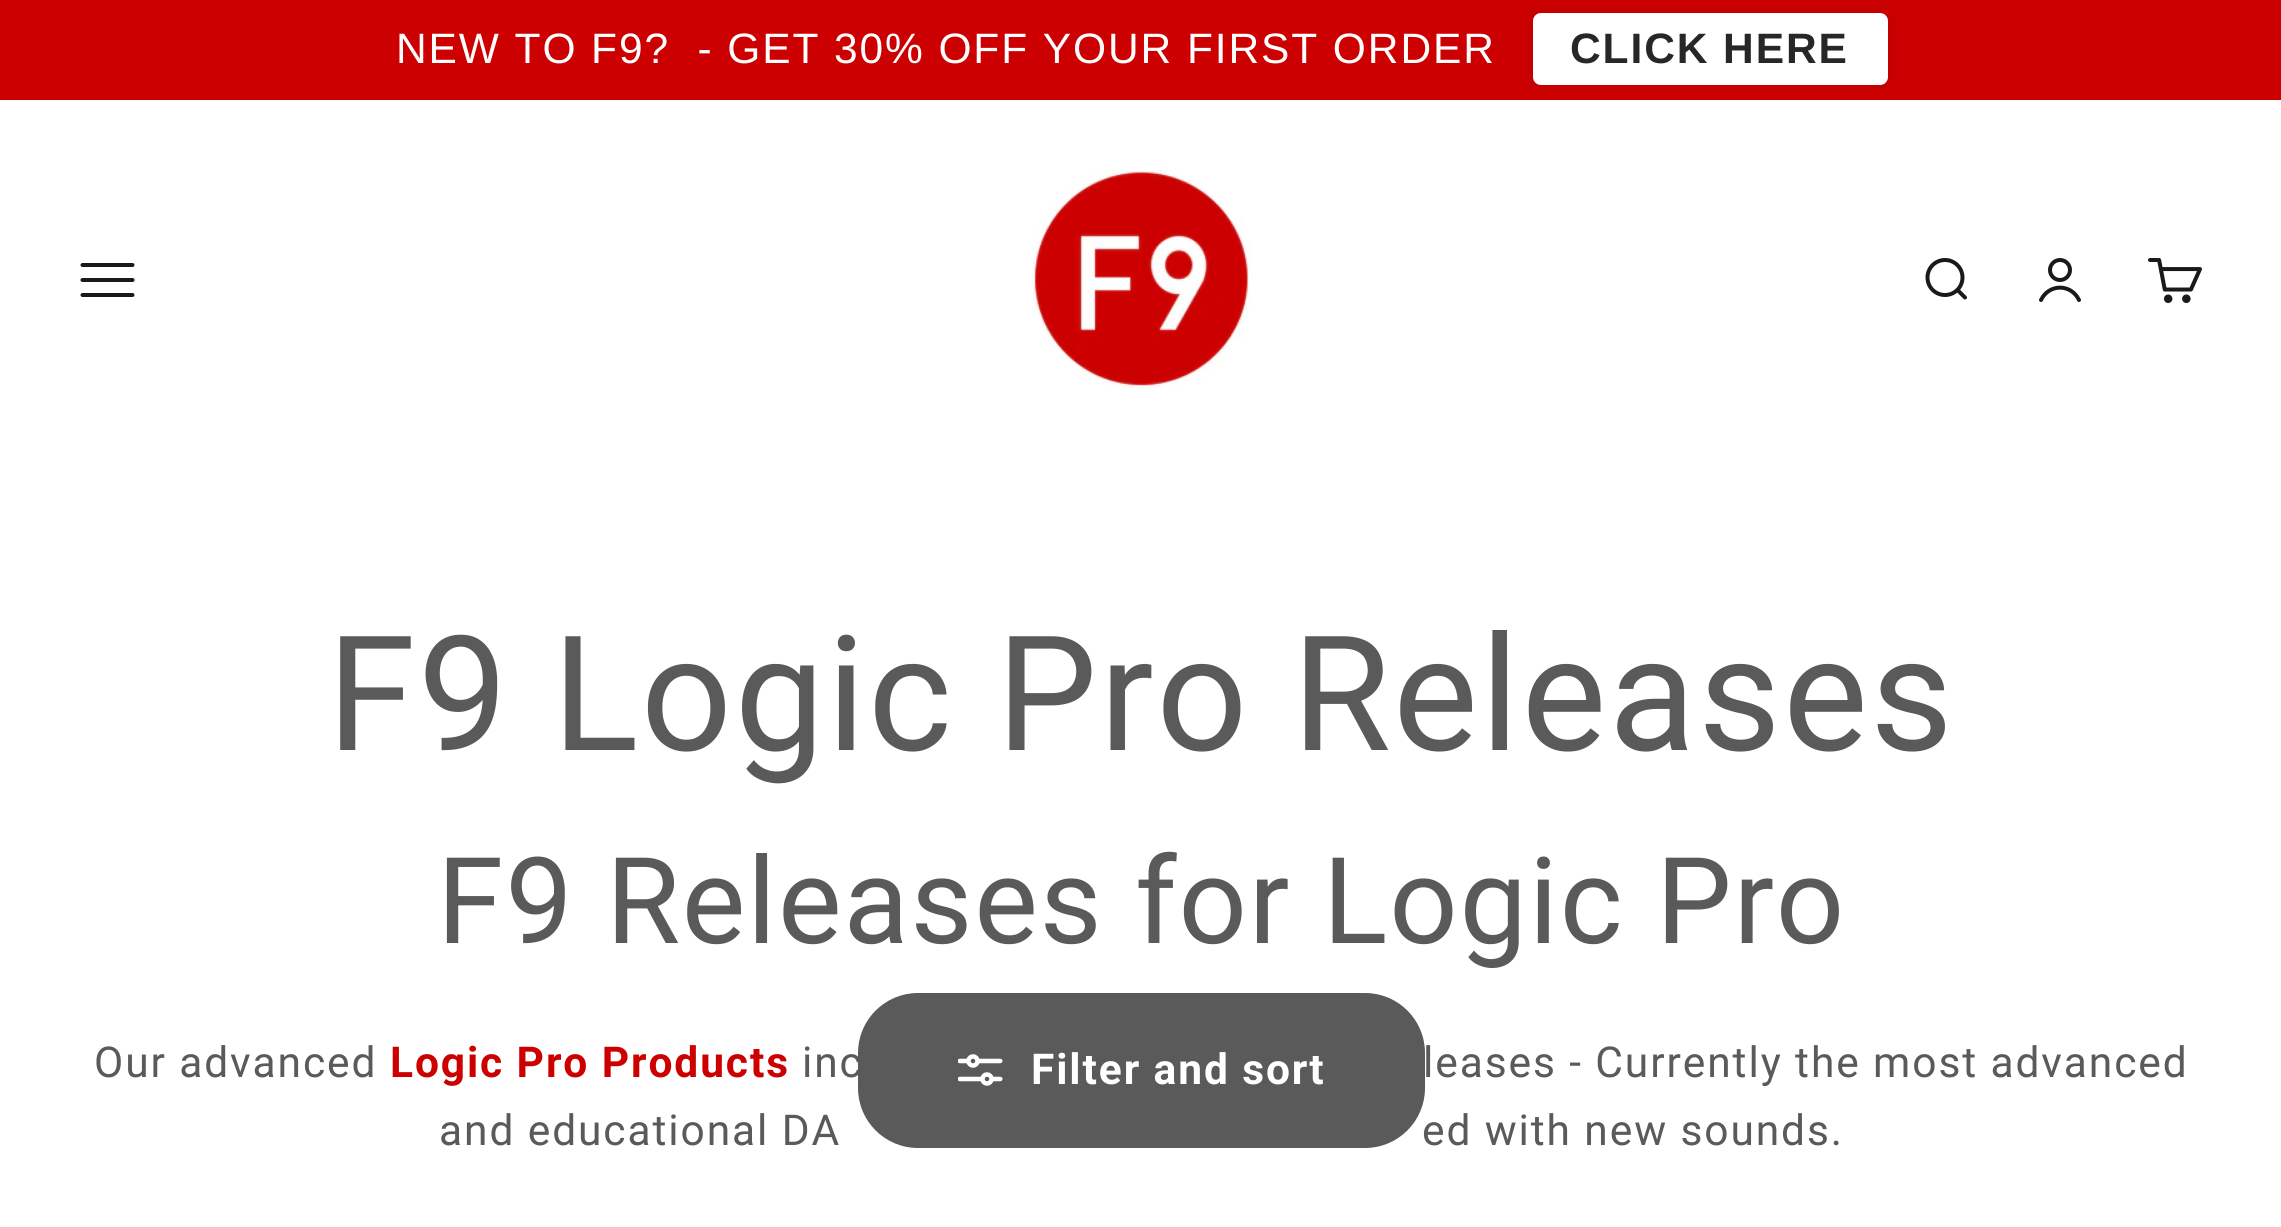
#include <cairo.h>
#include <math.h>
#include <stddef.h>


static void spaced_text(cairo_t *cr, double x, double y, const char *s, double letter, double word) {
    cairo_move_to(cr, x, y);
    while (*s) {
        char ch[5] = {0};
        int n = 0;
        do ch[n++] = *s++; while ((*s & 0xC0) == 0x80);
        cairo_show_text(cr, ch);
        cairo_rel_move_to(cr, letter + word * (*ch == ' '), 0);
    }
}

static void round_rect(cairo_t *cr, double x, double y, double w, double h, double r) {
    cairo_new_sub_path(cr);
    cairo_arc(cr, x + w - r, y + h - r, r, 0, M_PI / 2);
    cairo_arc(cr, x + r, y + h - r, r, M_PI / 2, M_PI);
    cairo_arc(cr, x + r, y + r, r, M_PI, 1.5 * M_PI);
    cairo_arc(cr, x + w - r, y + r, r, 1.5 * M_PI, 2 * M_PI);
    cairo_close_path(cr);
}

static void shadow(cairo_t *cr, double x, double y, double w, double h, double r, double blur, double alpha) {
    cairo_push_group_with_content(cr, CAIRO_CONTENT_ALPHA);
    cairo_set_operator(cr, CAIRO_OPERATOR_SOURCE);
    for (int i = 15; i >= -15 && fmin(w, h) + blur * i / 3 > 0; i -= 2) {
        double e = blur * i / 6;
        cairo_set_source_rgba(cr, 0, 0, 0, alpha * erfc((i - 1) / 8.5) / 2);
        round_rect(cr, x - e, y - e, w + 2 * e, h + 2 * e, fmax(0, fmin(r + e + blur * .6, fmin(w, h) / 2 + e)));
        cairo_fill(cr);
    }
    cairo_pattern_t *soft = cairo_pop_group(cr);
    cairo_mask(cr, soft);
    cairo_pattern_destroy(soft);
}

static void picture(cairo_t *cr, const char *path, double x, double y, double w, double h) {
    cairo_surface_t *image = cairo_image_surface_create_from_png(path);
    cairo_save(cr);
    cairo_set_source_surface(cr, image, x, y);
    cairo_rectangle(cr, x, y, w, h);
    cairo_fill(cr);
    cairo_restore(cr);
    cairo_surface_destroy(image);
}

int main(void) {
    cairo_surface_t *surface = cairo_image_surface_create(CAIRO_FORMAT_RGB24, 2281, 1227);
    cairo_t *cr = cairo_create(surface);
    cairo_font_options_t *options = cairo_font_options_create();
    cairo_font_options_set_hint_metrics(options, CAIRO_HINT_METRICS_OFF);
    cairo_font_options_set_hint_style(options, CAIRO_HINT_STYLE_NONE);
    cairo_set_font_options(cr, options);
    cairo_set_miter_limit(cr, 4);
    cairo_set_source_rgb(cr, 1, 1, 1);
    cairo_paint(cr);
    cairo_set_source_rgb(cr, 0.8, 0, 0);
    cairo_rectangle(cr, 0, 0, 2281, 100);
    cairo_fill(cr);
    cairo_select_font_face(cr, "Liberation Sans", CAIRO_FONT_SLANT_NORMAL, CAIRO_FONT_WEIGHT_NORMAL);
    cairo_set_font_size(cr, 42.5);
    cairo_set_source_rgb(cr, 1, 1, 1);
    spaced_text(cr, 396, 63, "NEW TO F9?  - GET 30% OFF YOUR FIRST ORDER", 1.9, 0);
    cairo_set_source_rgb(cr, 0, 0, 0);
    shadow(cr, 1533, 13, 355, 72, 8, 6, 0.1);
    cairo_set_source_rgb(cr, 1, 1, 1);
    round_rect(cr, 1533, 13, 355, 72, 8);
    cairo_fill(cr);
    cairo_select_font_face(cr, "Liberation Sans", CAIRO_FONT_SLANT_NORMAL, CAIRO_FONT_WEIGHT_BOLD);
    cairo_set_source_rgb(cr, 0.153, 0.153, 0.153);
    spaced_text(cr, 1570, 63, "CLICK HERE", 1.9, 0);
    cairo_new_path(cr);
    cairo_move_to(cr, 82.5, 265);
    cairo_line_to(cr, 132.5, 265);
    cairo_move_to(cr, 82.5, 280);
    cairo_line_to(cr, 132.5, 280);
    cairo_move_to(cr, 82.5, 295);
    cairo_line_to(cr, 132.5, 295);
    cairo_set_source_rgb(cr, 0.102, 0.102, 0.102);
    cairo_set_line_width(cr, 4);
    cairo_set_line_cap(cr, CAIRO_LINE_CAP_ROUND);
    cairo_stroke(cr);
    picture(cr, "img1.png", 1032, 170, 220, 220);
    cairo_arc(cr, 1945, 277.5, 17.5, 0, 2 * M_PI);
    cairo_set_line_cap(cr, CAIRO_LINE_CAP_BUTT);
    cairo_stroke(cr);
    cairo_new_path(cr);
    cairo_move_to(cr, 1957.5, 290);
    cairo_line_to(cr, 1965, 297.5);
    cairo_set_line_cap(cr, CAIRO_LINE_CAP_ROUND);
    cairo_set_line_join(cr, CAIRO_LINE_JOIN_ROUND);
    cairo_stroke(cr);
    cairo_arc(cr, 2060, 270, 10, 0, 2 * M_PI);
    cairo_set_line_cap(cr, CAIRO_LINE_CAP_BUTT);
    cairo_set_line_join(cr, CAIRO_LINE_JOIN_MITER);
    cairo_stroke(cr);
    cairo_new_path(cr);
    cairo_move_to(cr, 2041, 300);
    cairo_curve_to(cr, 2049, 283.5, 2071, 283.5, 2079, 300);
    cairo_set_line_cap(cr, CAIRO_LINE_CAP_ROUND);
    cairo_stroke(cr);
    picture(cr, "img2.png", 2148, 258, 54, 45);
    cairo_select_font_face(cr, "Roboto", CAIRO_FONT_SLANT_NORMAL, CAIRO_FONT_WEIGHT_NORMAL);
    cairo_set_font_size(cr, 160);
    cairo_set_source_rgb(cr, 0.357, 0.353, 0.353);
    spaced_text(cr, 327, 750, "F9 Logic Pro Releases", 2.4, 0);
    cairo_set_font_size(cr, 120);
    spaced_text(cr, 437, 943, "F9 Releases for Logic Pro", 1.8, 0);
    cairo_set_font_size(cr, 42.5);
    spaced_text(cr, 94, 1077, "Our advanced", 1.9, 0);
    cairo_select_font_face(cr, "Roboto", CAIRO_FONT_SLANT_NORMAL, CAIRO_FONT_WEIGHT_BOLD);
    cairo_set_source_rgb(cr, 0.8, 0, 0);
    spaced_text(cr, 390, 1077, "Logic Pro Products", 1.9, 0);
    cairo_select_font_face(cr, "Roboto", CAIRO_FONT_SLANT_NORMAL, CAIRO_FONT_WEIGHT_NORMAL);
    cairo_set_source_rgb(cr, 0.357, 0.353, 0.353);
    spaced_text(cr, 802, 1077, "inc", 1.9, 0);
    spaced_text(cr, 1423, 1077, "leases - Currently the most advanced", 1.9, 0);
    spaced_text(cr, 439, 1145, "and educational DA", 1.9, 0);
    spaced_text(cr, 1422, 1145, "ed with new sounds.", 1.9, 0);
    round_rect(cr, 858, 993, 567, 155, 60);
    cairo_fill(cr);
    picture(cr, "img3.png", 958, 1054, 45, 32);
    cairo_select_font_face(cr, "Roboto", CAIRO_FONT_SLANT_NORMAL, CAIRO_FONT_WEIGHT_BOLD);
    cairo_set_source_rgb(cr, 1, 1, 1);
    spaced_text(cr, 1031, 1084, "Filter and sort", 1.9, 0);
    cairo_surface_write_to_png(surface, "page.png");
    cairo_font_options_destroy(options);
    cairo_destroy(cr);
    cairo_surface_destroy(surface);
    return 0;
}
